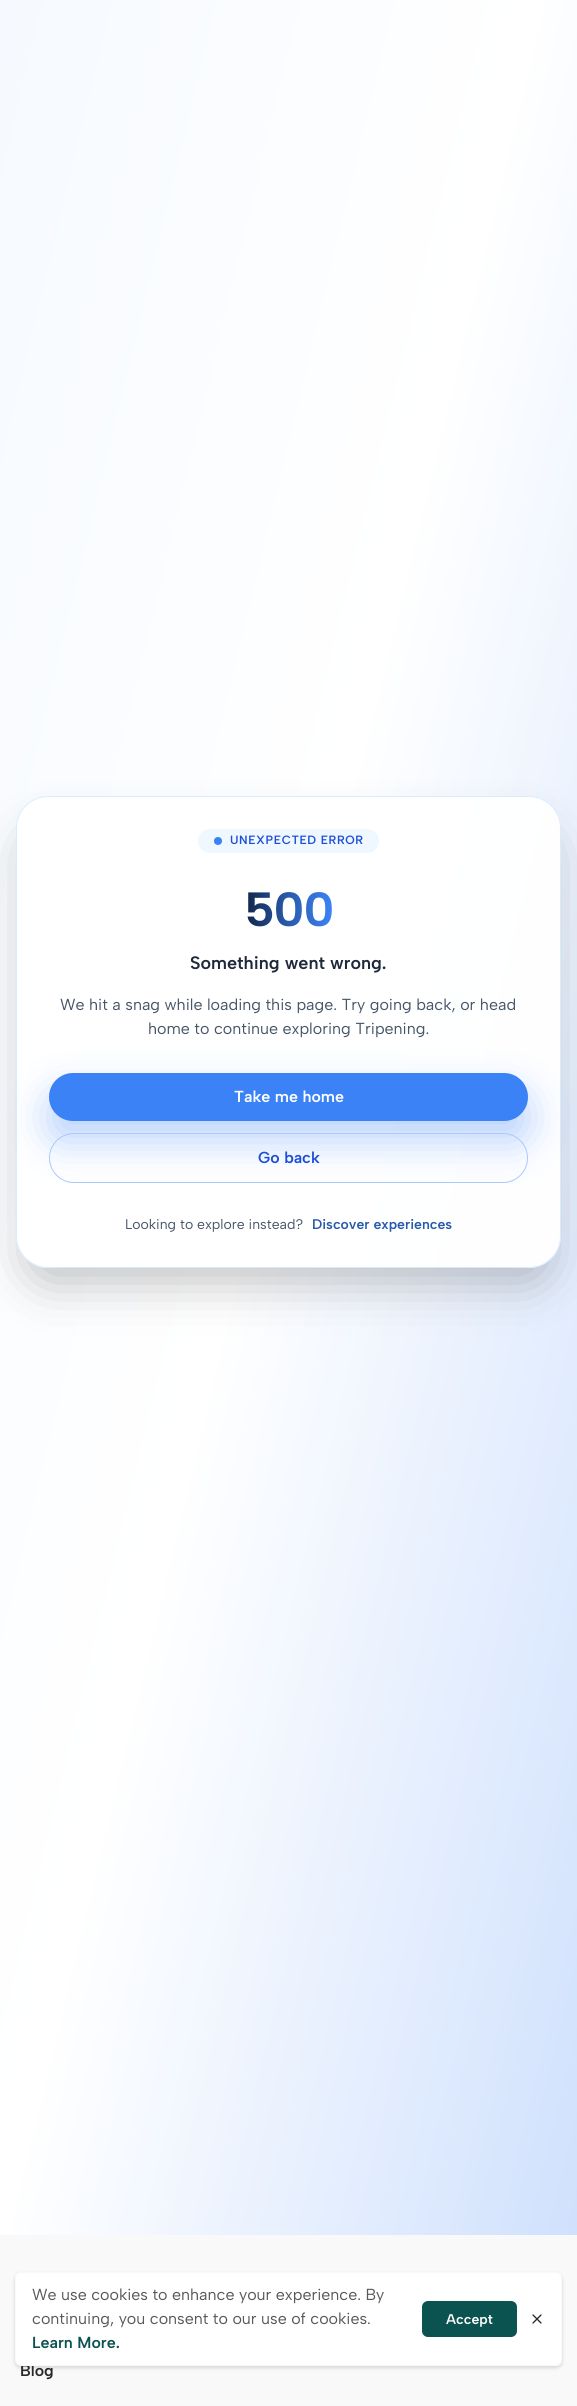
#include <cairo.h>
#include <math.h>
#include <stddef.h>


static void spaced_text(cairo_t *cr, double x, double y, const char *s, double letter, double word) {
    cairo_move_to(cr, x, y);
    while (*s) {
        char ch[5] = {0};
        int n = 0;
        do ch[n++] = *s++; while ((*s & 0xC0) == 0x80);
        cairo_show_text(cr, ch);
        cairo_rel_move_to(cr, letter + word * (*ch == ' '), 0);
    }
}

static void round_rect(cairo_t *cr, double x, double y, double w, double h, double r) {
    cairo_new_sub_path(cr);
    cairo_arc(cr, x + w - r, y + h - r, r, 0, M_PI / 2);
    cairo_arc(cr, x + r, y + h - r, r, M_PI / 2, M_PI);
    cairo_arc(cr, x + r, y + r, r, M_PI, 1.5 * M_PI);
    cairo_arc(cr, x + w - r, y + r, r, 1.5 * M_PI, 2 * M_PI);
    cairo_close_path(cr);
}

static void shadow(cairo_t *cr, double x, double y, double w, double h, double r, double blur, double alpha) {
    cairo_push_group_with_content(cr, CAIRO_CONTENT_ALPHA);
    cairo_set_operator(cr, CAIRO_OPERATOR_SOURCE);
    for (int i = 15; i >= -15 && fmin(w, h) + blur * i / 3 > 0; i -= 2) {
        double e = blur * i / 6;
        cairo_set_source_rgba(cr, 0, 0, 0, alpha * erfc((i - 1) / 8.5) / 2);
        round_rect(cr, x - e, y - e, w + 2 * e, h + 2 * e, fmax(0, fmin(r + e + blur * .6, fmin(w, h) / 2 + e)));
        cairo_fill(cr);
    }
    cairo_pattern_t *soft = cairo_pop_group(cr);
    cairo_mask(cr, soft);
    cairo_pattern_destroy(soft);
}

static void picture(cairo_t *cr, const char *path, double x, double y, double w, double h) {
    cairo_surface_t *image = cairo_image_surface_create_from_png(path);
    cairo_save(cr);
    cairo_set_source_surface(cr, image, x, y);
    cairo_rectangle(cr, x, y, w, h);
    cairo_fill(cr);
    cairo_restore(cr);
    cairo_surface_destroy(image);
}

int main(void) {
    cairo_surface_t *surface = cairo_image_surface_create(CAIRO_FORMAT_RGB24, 577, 2406);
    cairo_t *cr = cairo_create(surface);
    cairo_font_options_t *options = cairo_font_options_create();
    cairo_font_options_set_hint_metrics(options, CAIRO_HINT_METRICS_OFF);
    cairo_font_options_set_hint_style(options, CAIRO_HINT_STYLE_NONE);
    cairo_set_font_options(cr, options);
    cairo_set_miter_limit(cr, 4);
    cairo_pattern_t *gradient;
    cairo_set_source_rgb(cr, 0.973, 0.973, 0.973);
    cairo_paint(cr);
    gradient = cairo_pattern_create_linear(-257, 901, 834, 1163);
    cairo_pattern_add_color_stop_rgba(gradient, 0, 0.961, 0.976, 1, 1);
    cairo_pattern_add_color_stop_rgba(gradient, 0.5, 1, 1, 1, 1);
    cairo_pattern_add_color_stop_rgba(gradient, 1, 0.816, 0.882, 0.992, 1);
    cairo_set_source(cr, gradient);
    cairo_pattern_destroy(gradient);
    cairo_rectangle(cr, 0, 0, 577, 2235);
    cairo_fill(cr);
    cairo_save(cr);
    cairo_set_fill_rule(cr, CAIRO_FILL_RULE_EVEN_ODD);
    cairo_new_path(cr);
    cairo_move_to(cr, 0, 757);
    cairo_line_to(cr, 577, 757);
    cairo_line_to(cr, 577, 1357);
    cairo_line_to(cr, 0, 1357);
    cairo_close_path(cr);
    cairo_move_to(cr, 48, 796);
    cairo_line_to(cr, 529, 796);
    cairo_curve_to(cr, 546.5, 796, 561, 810.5, 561, 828);
    cairo_line_to(cr, 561, 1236);
    cairo_curve_to(cr, 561, 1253.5, 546.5, 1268, 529, 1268);
    cairo_line_to(cr, 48, 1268);
    cairo_curve_to(cr, 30.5, 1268, 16, 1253.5, 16, 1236);
    cairo_line_to(cr, 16, 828);
    cairo_curve_to(cr, 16, 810.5, 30.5, 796, 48, 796);
    cairo_close_path(cr);
    cairo_clip(cr);
    cairo_set_source_rgb(cr, 0, 0, 0);
    shadow(cr, 28, 833, 521, 448, 20, 25, 0.25);
    cairo_restore(cr);
    cairo_set_source_rgba(cr, 1, 1, 1, 0.95);
    round_rect(cr, 16.5, 796.5, 544, 471, 31.5);
    cairo_fill_preserve(cr);
    cairo_set_source_rgb(cr, 0.859, 0.918, 0.996);
    cairo_set_line_width(cr, 1);
    cairo_stroke(cr);
    cairo_set_source_rgb(cr, 0.937, 0.965, 1);
    round_rect(cr, 198, 829, 181, 24, 12);
    cairo_fill(cr);
    cairo_set_source_rgb(cr, 0.231, 0.51, 0.965);
    cairo_arc(cr, 218, 841, 4, 0, 2 * M_PI);
    cairo_fill(cr);
    cairo_select_font_face(cr, "Albert Sans SemiBold", CAIRO_FONT_SLANT_NORMAL, CAIRO_FONT_WEIGHT_NORMAL);
    cairo_set_font_size(cr, 12);
    cairo_set_source_rgb(cr, 0.114, 0.306, 0.847);
    spaced_text(cr, 230, 844, "UNEXPECTED ERROR", 0.6, 0);
    cairo_select_font_face(cr, "Albert Sans", CAIRO_FONT_SLANT_NORMAL, CAIRO_FONT_WEIGHT_BOLD);
    cairo_set_font_size(cr, 48);
    gradient = cairo_pattern_create_linear(245, 909, 332, 909);
    cairo_pattern_add_color_stop_rgba(gradient, 0, 0.063, 0.145, 0.294, 1);
    cairo_pattern_add_color_stop_rgba(gradient, 0.5, 0.161, 0.357, 0.675, 1);
    cairo_pattern_add_color_stop_rgba(gradient, 1, 0.231, 0.51, 0.965, 1);
    cairo_set_source(cr, gradient);
    cairo_pattern_destroy(gradient);
    spaced_text(cr, 245, 926, "500", -1, 0);
    cairo_select_font_face(cr, "Albert Sans SemiBold", CAIRO_FONT_SLANT_NORMAL, CAIRO_FONT_WEIGHT_NORMAL);
    cairo_set_font_size(cr, 18);
    cairo_set_source_rgb(cr, 0.118, 0.161, 0.231);
    cairo_move_to(cr, 190, 969);
    cairo_show_text(cr, "Something went wrong.");
    cairo_select_font_face(cr, "Albert Sans", CAIRO_FONT_SLANT_NORMAL, CAIRO_FONT_WEIGHT_NORMAL);
    cairo_set_font_size(cr, 16);
    cairo_set_source_rgb(cr, 0.278, 0.333, 0.412);
    cairo_move_to(cr, 60, 1010);
    cairo_show_text(cr, "We hit a snag while loading this page. Try going back, or head");
    cairo_move_to(cr, 148, 1034);
    cairo_show_text(cr, "home to continue exploring Tripening.");
    cairo_set_source_rgb(cr, 0.231, 0.51, 0.965);
    shadow(cr, 49, 1093, 479, 48, 24, 20, 0.35);
    cairo_set_source_rgb(cr, 0.231, 0.51, 0.965);
    round_rect(cr, 49, 1073, 479, 48, 24);
    cairo_fill(cr);
    cairo_select_font_face(cr, "Albert Sans SemiBold", CAIRO_FONT_SLANT_NORMAL, CAIRO_FONT_WEIGHT_NORMAL);
    cairo_set_source_rgb(cr, 1, 1, 1);
    cairo_move_to(cr, 234, 1102);
    cairo_show_text(cr, "Take me home");
    round_rect(cr, 49.5, 1133.5, 478, 49, 24.5);
    cairo_set_source_rgb(cr, 0.671, 0.788, 0.984);
    cairo_stroke(cr);
    cairo_set_source_rgb(cr, 0.114, 0.306, 0.847);
    cairo_move_to(cr, 258, 1163);
    cairo_show_text(cr, "Go back");
    cairo_select_font_face(cr, "Albert Sans", CAIRO_FONT_SLANT_NORMAL, CAIRO_FONT_WEIGHT_NORMAL);
    cairo_set_font_size(cr, 14);
    cairo_set_source_rgb(cr, 0.278, 0.333, 0.412);
    cairo_move_to(cr, 125, 1229);
    cairo_show_text(cr, "Looking to explore instead?");
    cairo_select_font_face(cr, "Albert Sans SemiBold", CAIRO_FONT_SLANT_NORMAL, CAIRO_FONT_WEIGHT_NORMAL);
    cairo_set_source_rgb(cr, 0.161, 0.357, 0.675);
    cairo_move_to(cr, 312, 1229);
    cairo_show_text(cr, "Discover experiences");
    cairo_set_source_rgb(cr, 0.09, 0.09, 0.09);
    shadow(cr, 15, 2274, 547, 94, 6, 2, 0.16);
    cairo_set_font_size(cr, 16);
    cairo_set_source_rgb(cr, 0.161, 0.161, 0.161);
    cairo_move_to(cr, 20, 2376);
    cairo_show_text(cr, "Blog");
    cairo_set_source_rgb(cr, 1, 1, 1);
    round_rect(cr, 15.5, 2272.5, 546, 93, 5.5);
    cairo_fill_preserve(cr);
    cairo_set_source_rgb(cr, 0.973, 0.973, 0.973);
    cairo_stroke(cr);
    cairo_select_font_face(cr, "Albert Sans", CAIRO_FONT_SLANT_NORMAL, CAIRO_FONT_WEIGHT_NORMAL);
    cairo_set_source_rgb(cr, 0.349, 0.341, 0.341);
    cairo_move_to(cr, 32, 2300);
    cairo_show_text(cr, "We use cookies to enhance your experience. By");
    cairo_move_to(cr, 32, 2324);
    cairo_show_text(cr, "continuing, you consent to our use of cookies.");
    cairo_select_font_face(cr, "Albert Sans SemiBold", CAIRO_FONT_SLANT_NORMAL, CAIRO_FONT_WEIGHT_NORMAL);
    cairo_set_source_rgb(cr, 0.043, 0.325, 0.318);
    cairo_move_to(cr, 32, 2348);
    cairo_show_text(cr, "Learn More.");
    round_rect(cr, 422, 2301, 95, 36, 6);
    cairo_fill(cr);
    cairo_set_font_size(cr, 14);
    cairo_set_source_rgb(cr, 1, 1, 1);
    cairo_move_to(cr, 446, 2324);
    cairo_show_text(cr, "Accept");
    picture(cr, "img1.png", 532, 2314, 10, 10);
    cairo_surface_write_to_png(surface, "page.png");
    cairo_font_options_destroy(options);
    cairo_destroy(cr);
    cairo_surface_destroy(surface);
    return 0;
}
